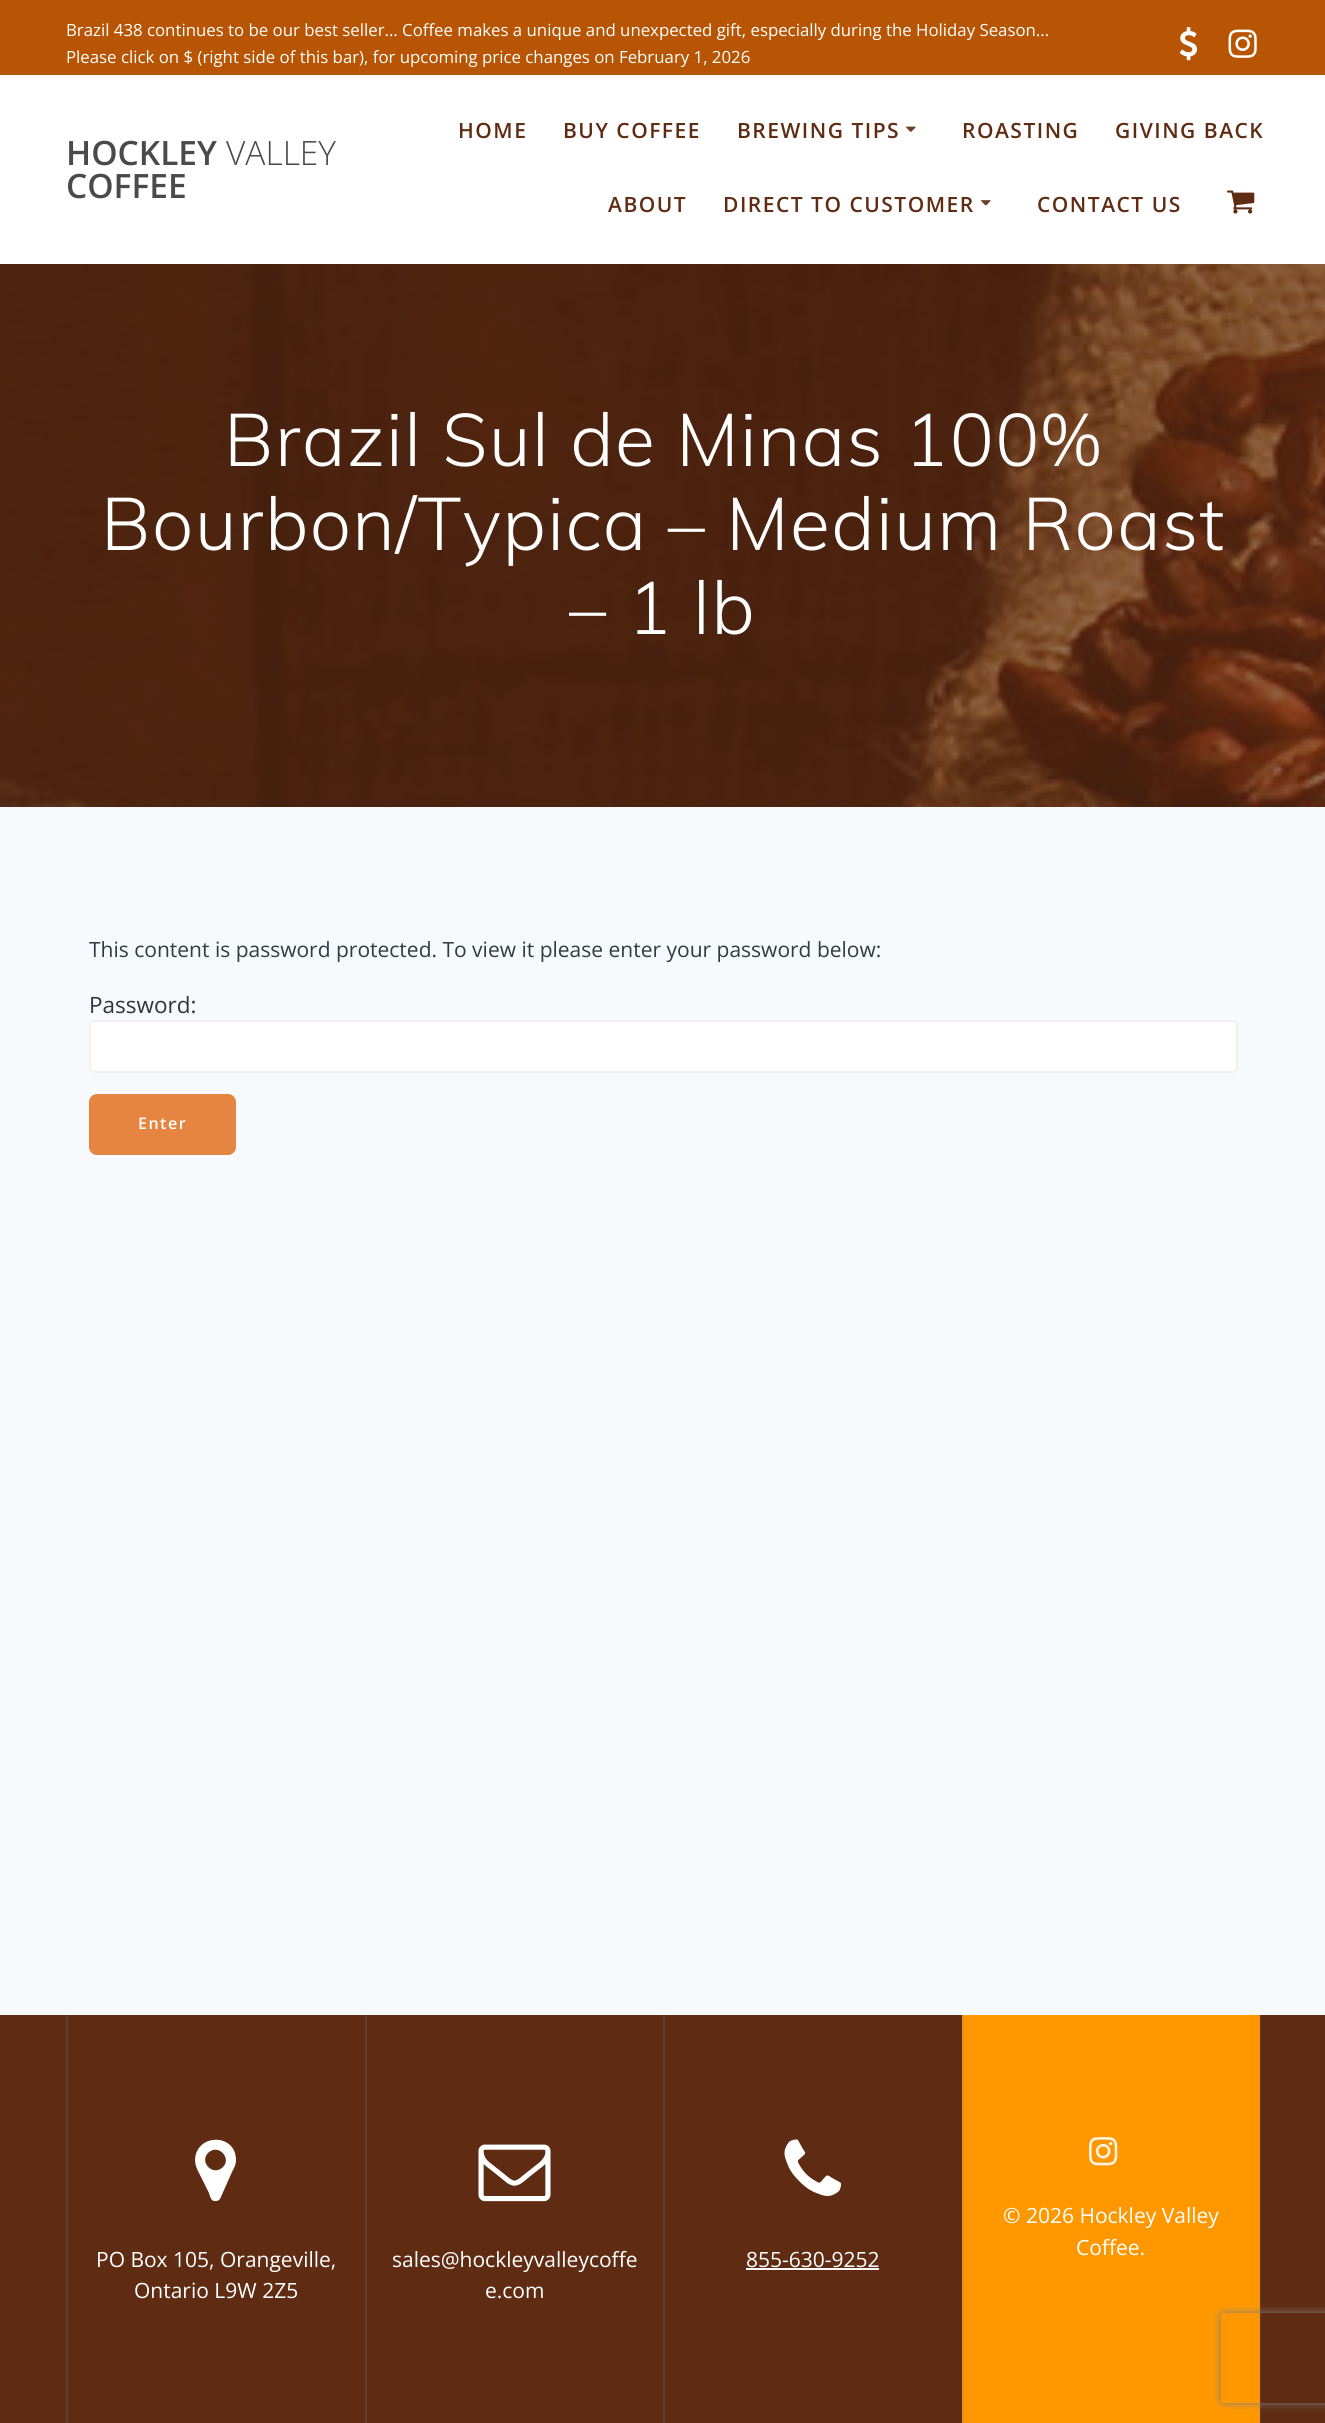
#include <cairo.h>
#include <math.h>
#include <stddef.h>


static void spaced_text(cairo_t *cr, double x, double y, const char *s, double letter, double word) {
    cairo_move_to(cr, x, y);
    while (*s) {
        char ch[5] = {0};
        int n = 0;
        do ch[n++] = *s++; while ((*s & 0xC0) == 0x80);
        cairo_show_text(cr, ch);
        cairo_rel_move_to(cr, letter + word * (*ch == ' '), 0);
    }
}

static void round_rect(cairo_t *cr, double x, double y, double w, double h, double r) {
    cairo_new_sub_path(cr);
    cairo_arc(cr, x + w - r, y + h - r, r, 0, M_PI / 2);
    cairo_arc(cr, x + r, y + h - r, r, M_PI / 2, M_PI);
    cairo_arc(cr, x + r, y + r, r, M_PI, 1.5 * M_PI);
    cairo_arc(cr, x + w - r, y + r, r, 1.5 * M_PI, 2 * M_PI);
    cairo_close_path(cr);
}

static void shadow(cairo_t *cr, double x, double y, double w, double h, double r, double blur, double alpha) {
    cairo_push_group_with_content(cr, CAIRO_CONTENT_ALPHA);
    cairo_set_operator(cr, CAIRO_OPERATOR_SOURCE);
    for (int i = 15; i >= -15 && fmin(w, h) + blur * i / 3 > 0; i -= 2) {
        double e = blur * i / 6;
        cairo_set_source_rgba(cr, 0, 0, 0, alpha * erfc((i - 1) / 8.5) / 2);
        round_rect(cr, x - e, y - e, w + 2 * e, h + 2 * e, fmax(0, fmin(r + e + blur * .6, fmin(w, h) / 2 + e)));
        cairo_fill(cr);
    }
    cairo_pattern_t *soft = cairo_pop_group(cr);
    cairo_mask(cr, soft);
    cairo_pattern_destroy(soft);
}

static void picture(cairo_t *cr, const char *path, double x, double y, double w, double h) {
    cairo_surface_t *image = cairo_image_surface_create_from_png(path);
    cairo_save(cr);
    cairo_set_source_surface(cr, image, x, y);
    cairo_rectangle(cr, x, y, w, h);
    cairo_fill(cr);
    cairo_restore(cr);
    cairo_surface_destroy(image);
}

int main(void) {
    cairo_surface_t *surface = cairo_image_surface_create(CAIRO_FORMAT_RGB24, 1325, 2423);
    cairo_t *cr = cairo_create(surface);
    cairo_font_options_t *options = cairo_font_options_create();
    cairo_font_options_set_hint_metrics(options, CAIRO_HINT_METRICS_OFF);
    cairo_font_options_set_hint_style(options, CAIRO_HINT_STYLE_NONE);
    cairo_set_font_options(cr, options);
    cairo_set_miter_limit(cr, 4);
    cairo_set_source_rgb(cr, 0.961, 0.98, 0.992);
    cairo_paint(cr);
    cairo_set_source_rgb(cr, 0.722, 0.333, 0.016);
    cairo_rectangle(cr, 0, 0, 1325, 75);
    cairo_fill(cr);
    cairo_select_font_face(cr, "Open Sans", CAIRO_FONT_SLANT_NORMAL, CAIRO_FONT_WEIGHT_NORMAL);
    cairo_set_font_size(cr, 16.8);
    cairo_set_source_rgb(cr, 1, 1, 1);
    cairo_move_to(cr, 66, 36);
    cairo_show_text(cr, "Brazil 438 continues to be our best seller... Coffee makes a unique and unexpected gift, especially during the Holiday Season...");
    cairo_move_to(cr, 66, 63);
    cairo_show_text(cr, "Please click on $ (right side of this bar), for upcoming price changes on February 1, 2026");
    picture(cr, "img1.png", 1179, 27, 18, 34);
    picture(cr, "img2.png", 1228, 29, 29, 29);
    cairo_rectangle(cr, 0, 75, 1325, 189);
    cairo_fill(cr);
    cairo_select_font_face(cr, "Open Sans SemiBold", CAIRO_FONT_SLANT_NORMAL, CAIRO_FONT_WEIGHT_NORMAL);
    cairo_set_font_size(cr, 33.5);
    cairo_set_source_rgb(cr, 0.29, 0.29, 0.29);
    cairo_move_to(cr, 66, 165);
    cairo_show_text(cr, "HOCKLEY");
    cairo_select_font_face(cr, "Open Sans Light", CAIRO_FONT_SLANT_NORMAL, CAIRO_FONT_WEIGHT_NORMAL);
    cairo_move_to(cr, 226, 165);
    cairo_show_text(cr, "VALLEY");
    cairo_select_font_face(cr, "Open Sans SemiBold", CAIRO_FONT_SLANT_NORMAL, CAIRO_FONT_WEIGHT_NORMAL);
    cairo_move_to(cr, 66, 198);
    cairo_show_text(cr, "COFFEE");
    cairo_set_font_size(cr, 21);
    cairo_set_source_rgb(cr, 0.373, 0.173, 0.075);
    spaced_text(cr, 458, 138, "HOME", 1.5, 0);
    spaced_text(cr, 563, 138, "BUY COFFEE", 1.5, 0);
    spaced_text(cr, 737, 138, "BREWING TIPS", 1.5, 0);
    picture(cr, "img3.png", 906, 126, 10, 6);
    spaced_text(cr, 962, 138, "ROASTING", 1.5, 0);
    spaced_text(cr, 1115, 138, "GIVING BACK", 1.5, 0);
    spaced_text(cr, 608, 212, "ABOUT", 1.5, 0);
    spaced_text(cr, 723, 212, "DIRECT TO CUSTOMER", 1.5, 0);
    picture(cr, "img4.png", 981, 200, 10, 6);
    spaced_text(cr, 1037, 212, "CONTACT US", 1.5, 0);
    picture(cr, "img5.png", 1227, 190, 28, 24);
    picture(cr, "img6.png", 0, 264, 1325, 543);
    cairo_select_font_face(cr, "Muli Light", CAIRO_FONT_SLANT_NORMAL, CAIRO_FONT_WEIGHT_NORMAL);
    cairo_set_font_size(cr, 73.5);
    cairo_set_source_rgb(cr, 1, 1, 1);
    spaced_text(cr, 224, 466, "Brazil Sul de Minas 100%", 1.35, 0);
    spaced_text(cr, 101, 550, "Bourbon/Typica – Medium Roast", 1.35, 0);
    spaced_text(cr, 569, 634, "– 1 lb", 1.35, 0);
    cairo_select_font_face(cr, "Open Sans", CAIRO_FONT_SLANT_NORMAL, CAIRO_FONT_WEIGHT_NORMAL);
    cairo_set_font_size(cr, 21);
    cairo_set_source_rgb(cr, 0.204, 0.227, 0.251);
    cairo_move_to(cr, 89, 957);
    cairo_show_text(cr, "This content is password protected. To view it please enter your password below:");
    cairo_set_font_size(cr, 22.5);
    cairo_set_source_rgb(cr, 0.192, 0.204, 0.224);
    cairo_move_to(cr, 89, 1013);
    cairo_show_text(cr, "Password:");
    cairo_set_source_rgb(cr, 1, 1, 1);
    round_rect(cr, 90, 1021, 1147, 51, 4);
    cairo_fill_preserve(cr);
    cairo_set_source_rgb(cr, 0.945, 0.945, 0.945);
    cairo_stroke(cr);
    cairo_set_source_rgb(cr, 0.902, 0.522, 0.255);
    round_rect(cr, 90.5, 1095.5, 144, 58, 6.5);
    cairo_fill_preserve(cr);
    cairo_set_line_width(cr, 3);
    cairo_stroke(cr);
    cairo_select_font_face(cr, "Open Sans SemiBold", CAIRO_FONT_SLANT_NORMAL, CAIRO_FONT_WEIGHT_NORMAL);
    cairo_set_font_size(cr, 16);
    cairo_set_source_rgb(cr, 1, 1, 1);
    spaced_text(cr, 138, 1129, "Enter", 1.5, 0);
    cairo_set_source_rgb(cr, 0.373, 0.173, 0.075);
    cairo_rectangle(cr, 0, 2015, 1325, 408);
    cairo_fill(cr);
    cairo_set_source_rgb(cr, 0.4, 0.239, 0.161);
    cairo_rectangle(cr, 1260, 2015, 1, 408);
    cairo_fill(cr);
    cairo_set_source_rgb(cr, 1, 0.596, 0);
    cairo_rectangle(cr, 964, 2015, 295, 408);
    cairo_fill(cr);
    cairo_set_source_rgb(cr, 0.902, 0.576, 0.102);
    cairo_rectangle(cr, 1259, 2015, 1, 408);
    cairo_fill(cr);
    cairo_rectangle(cr, 962, 2015, 2, 408);
    cairo_fill(cr);
    picture(cr, "img7.png", 1089, 2137, 29, 29);
    cairo_select_font_face(cr, "Open Sans", CAIRO_FONT_SLANT_NORMAL, CAIRO_FONT_WEIGHT_NORMAL);
    cairo_set_font_size(cr, 21);
    cairo_set_source_rgb(cr, 1, 1, 1);
    cairo_move_to(cr, 1003, 2223);
    cairo_show_text(cr, "© 2026 Hockley Valley");
    cairo_move_to(cr, 1076, 2255);
    cairo_show_text(cr, "Coffee.");
    cairo_set_source_rgb(cr, 0.4, 0.239, 0.161);
    cairo_rectangle(cr, 66, 2015, 2, 408);
    cairo_fill(cr);
    cairo_set_source_rgb(cr, 1, 1, 1);
    cairo_new_path(cr);
    cairo_move_to(cr, 223, 2167);
    cairo_curve_to(cr, 232, 2158, 218, 2143, 208, 2153);
    cairo_curve_to(cr, 199, 2162, 213, 2177, 223, 2167);
    cairo_close_path(cr);
    cairo_move_to(cr, 236, 2160);
    cairo_curve_to(cr, 236, 2165, 234, 2168, 232, 2172);
    cairo_line_to(cr, 220, 2199);
    cairo_curve_to(cr, 219, 2200, 218, 2201, 216, 2201);
    cairo_curve_to(cr, 211, 2202, 210, 2196, 209, 2193);
    cairo_line_to(cr, 204, 2183);
    cairo_curve_to(cr, 201, 2176, 195, 2168, 195, 2160);
    cairo_curve_to(cr, 196, 2133, 236, 2133, 236, 2160);
    cairo_close_path(cr);
    cairo_fill(cr);
    cairo_move_to(cr, 96, 2267);
    cairo_show_text(cr, "PO Box 105, Orangeville,");
    cairo_move_to(cr, 134, 2298);
    cairo_show_text(cr, "Ontario L9W 2Z5");
    cairo_set_source_rgb(cr, 0.4, 0.239, 0.161);
    cairo_rectangle(cr, 365, 2015, 2, 408);
    cairo_fill(cr);
    picture(cr, "img8.png", 478, 2144, 73, 58);
    cairo_set_source_rgb(cr, 1, 1, 1);
    cairo_move_to(cr, 392, 2267);
    cairo_show_text(cr, "sales@hockleyvalleycoffe");
    cairo_move_to(cr, 485, 2298);
    cairo_show_text(cr, "e.com");
    cairo_set_source_rgb(cr, 0.4, 0.239, 0.161);
    cairo_rectangle(cr, 663, 2015, 2, 408);
    cairo_fill(cr);
    picture(cr, "img9.png", 784, 2139, 58, 57);
    cairo_set_source_rgb(cr, 1, 1, 1);
    cairo_move_to(cr, 746, 2267);
    cairo_show_text(cr, "855-630-9252");
    cairo_rectangle(cr, 746, 2268, 133, 2);
    cairo_fill(cr);
    cairo_save(cr);
    cairo_set_fill_rule(cr, CAIRO_FILL_RULE_EVEN_ODD);
    cairo_new_path(cr);
    cairo_move_to(cr, 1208, 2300);
    cairo_line_to(cr, 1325, 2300);
    cairo_line_to(cr, 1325, 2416);
    cairo_line_to(cr, 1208, 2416);
    cairo_close_path(cr);
    cairo_move_to(cr, 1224, 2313);
    cairo_line_to(cr, 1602, 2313);
    cairo_curve_to(cr, 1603.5, 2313, 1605, 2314.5, 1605, 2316);
    cairo_line_to(cr, 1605, 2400);
    cairo_curve_to(cr, 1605, 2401.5, 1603.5, 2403, 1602, 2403);
    cairo_line_to(cr, 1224, 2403);
    cairo_curve_to(cr, 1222.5, 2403, 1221, 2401.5, 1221, 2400);
    cairo_line_to(cr, 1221, 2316);
    cairo_curve_to(cr, 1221, 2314.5, 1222.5, 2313, 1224, 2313);
    cairo_close_path(cr);
    cairo_clip(cr);
    cairo_set_source_rgb(cr, 0.502, 0.502, 0.502);
    shadow(cr, 1221, 2313, 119, 90, 3, 4, 1);
    cairo_restore(cr);
    cairo_surface_write_to_png(surface, "page.png");
    cairo_font_options_destroy(options);
    cairo_destroy(cr);
    cairo_surface_destroy(surface);
    return 0;
}
